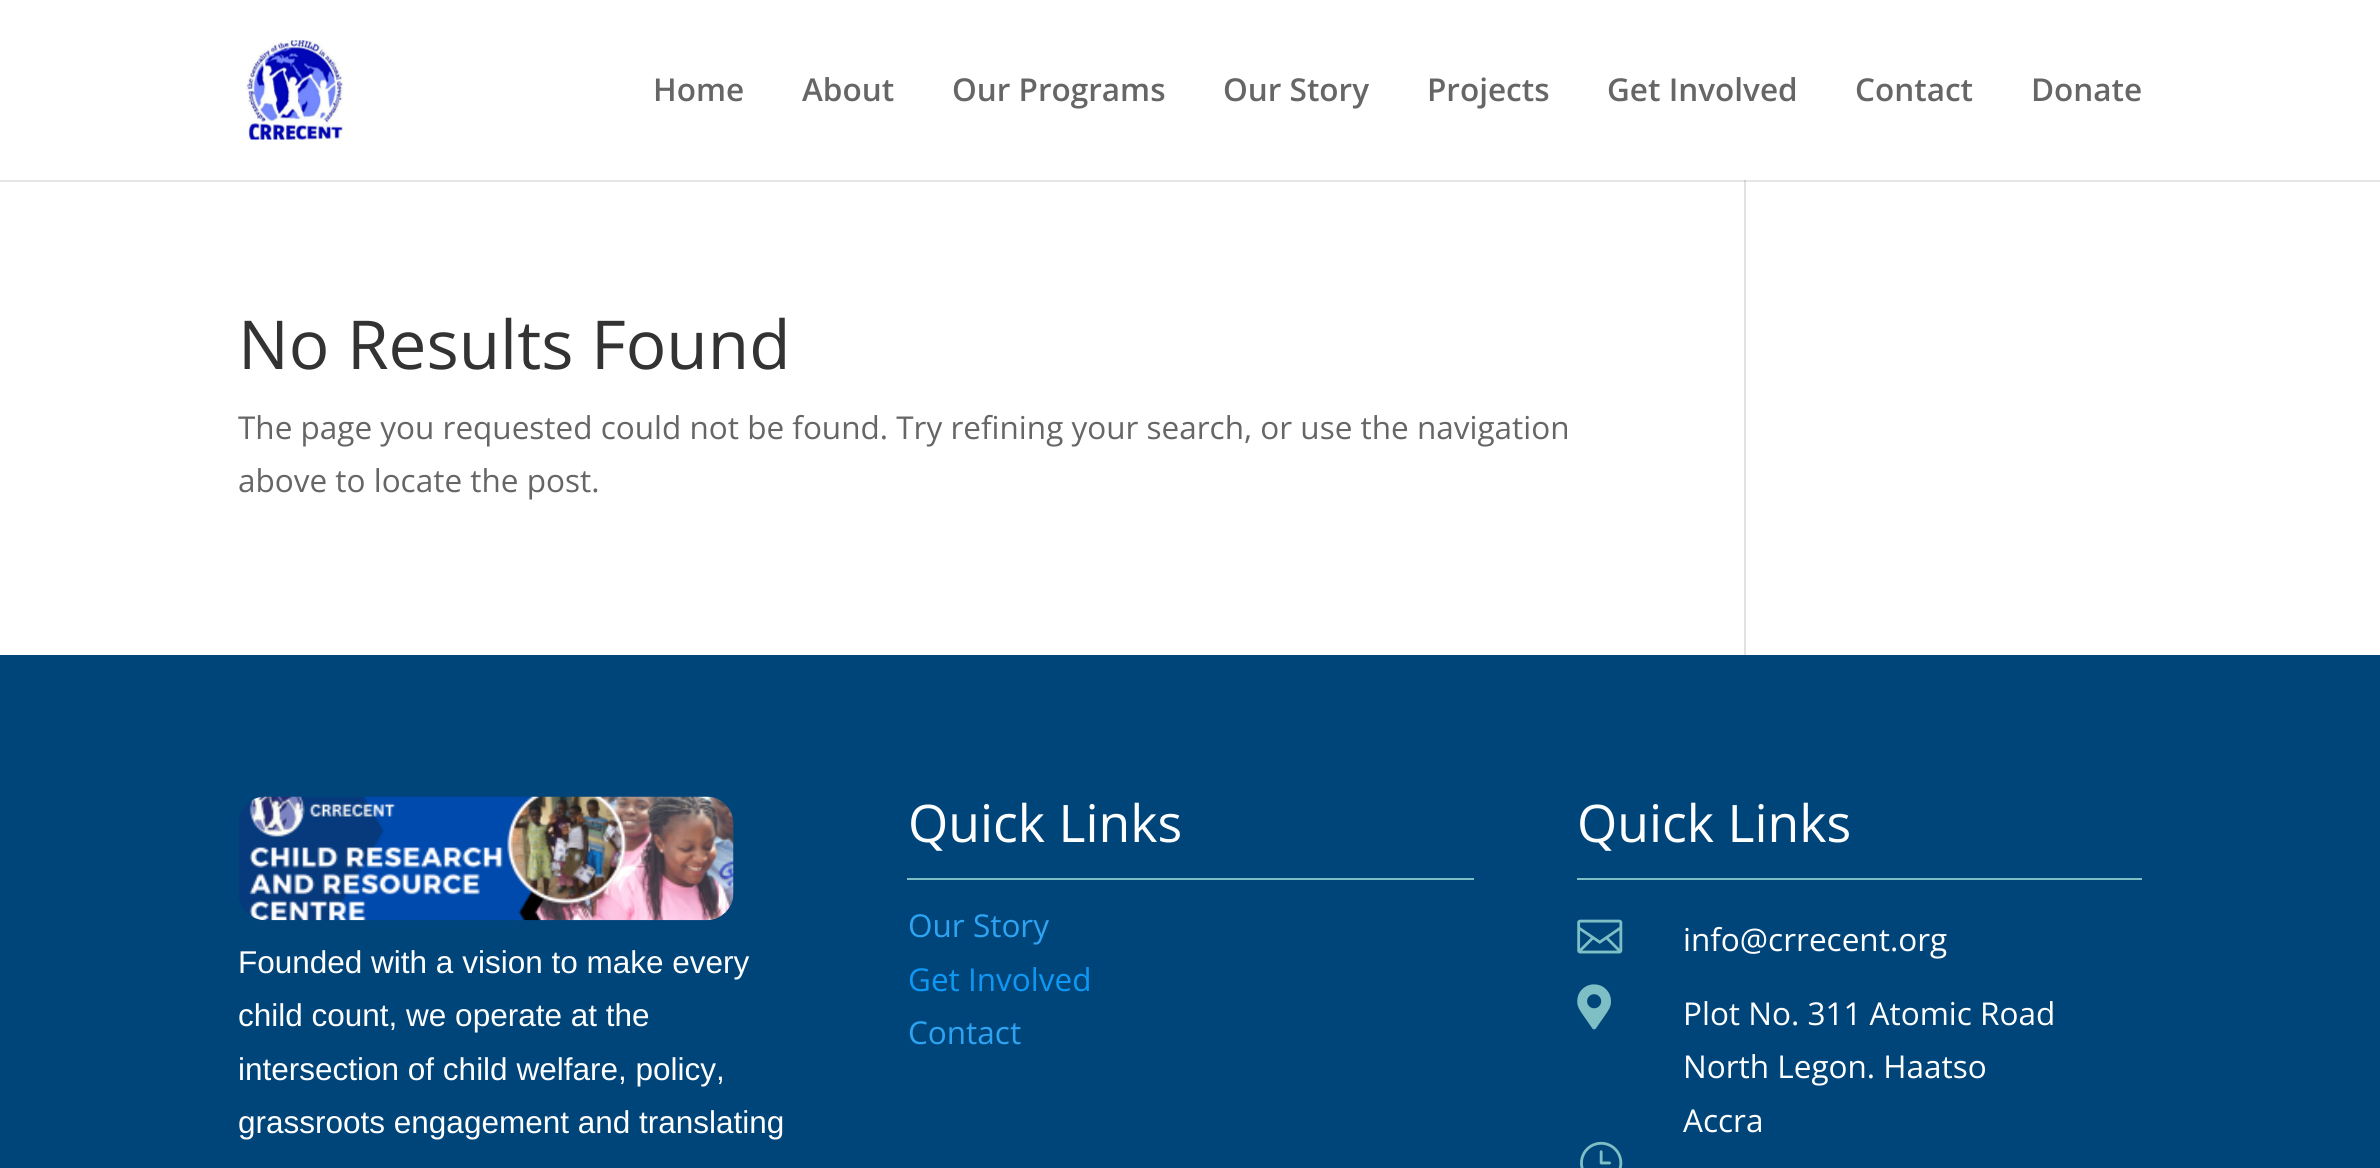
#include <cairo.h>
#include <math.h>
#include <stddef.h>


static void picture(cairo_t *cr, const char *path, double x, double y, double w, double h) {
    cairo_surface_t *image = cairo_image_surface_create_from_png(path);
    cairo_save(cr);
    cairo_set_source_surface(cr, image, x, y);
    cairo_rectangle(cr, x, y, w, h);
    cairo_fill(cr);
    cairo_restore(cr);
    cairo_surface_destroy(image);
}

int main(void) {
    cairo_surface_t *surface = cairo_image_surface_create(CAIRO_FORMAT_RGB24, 2380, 1168);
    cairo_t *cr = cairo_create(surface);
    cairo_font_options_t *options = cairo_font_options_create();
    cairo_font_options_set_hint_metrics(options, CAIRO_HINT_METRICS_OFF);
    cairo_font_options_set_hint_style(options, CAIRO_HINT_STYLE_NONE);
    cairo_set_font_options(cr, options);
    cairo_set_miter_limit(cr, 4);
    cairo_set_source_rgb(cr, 1, 1, 1);
    cairo_paint(cr);
    cairo_set_source_rgb(cr, 0.886, 0.886, 0.886);
    cairo_rectangle(cr, 1744, 180, 2, 475);
    cairo_fill(cr);
    cairo_set_source_rgba(cr, 0, 0, 0, 0.1);
    cairo_new_path(cr);
    cairo_move_to(cr, 0, 180);
    cairo_line_to(cr, 0, 182);
    cairo_line_to(cr, 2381, 182);
    cairo_line_to(cr, 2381, 2);
    cairo_line_to(cr, 2380, 2);
    cairo_line_to(cr, 2380, 180);
    cairo_close_path(cr);
    cairo_fill(cr);
    picture(cr, "img1.png", 245, 40, 99, 100);
    cairo_select_font_face(cr, "Open Sans SemiBold", CAIRO_FONT_SLANT_NORMAL, CAIRO_FONT_WEIGHT_NORMAL);
    cairo_set_font_size(cr, 31.5);
    cairo_set_source_rgb(cr, 0.4, 0.4, 0.4);
    cairo_move_to(cr, 653, 101);
    cairo_show_text(cr, "Home");
    cairo_move_to(cr, 802, 101);
    cairo_show_text(cr, "About");
    cairo_move_to(cr, 952, 101);
    cairo_show_text(cr, "Our Programs");
    cairo_move_to(cr, 1223, 101);
    cairo_show_text(cr, "Our Story");
    cairo_move_to(cr, 1427, 101);
    cairo_show_text(cr, "Projects");
    cairo_move_to(cr, 1607, 101);
    cairo_show_text(cr, "Get Involved");
    cairo_move_to(cr, 1855, 101);
    cairo_show_text(cr, "Contact");
    cairo_move_to(cr, 2031, 101);
    cairo_show_text(cr, "Donate");
    cairo_select_font_face(cr, "Open Sans", CAIRO_FONT_SLANT_NORMAL, CAIRO_FONT_WEIGHT_NORMAL);
    cairo_set_font_size(cr, 67.5);
    cairo_set_source_rgb(cr, 0.2, 0.2, 0.2);
    cairo_move_to(cr, 238, 369);
    cairo_show_text(cr, "No Results Found");
    cairo_set_font_size(cr, 31.5);
    cairo_set_source_rgb(cr, 0.4, 0.4, 0.4);
    cairo_move_to(cr, 238, 439);
    cairo_show_text(cr, "The page you requested could not be found. Try refining your search, or use the navigation");
    cairo_move_to(cr, 238, 492);
    cairo_show_text(cr, "above to locate the post.");
    cairo_set_source_rgb(cr, 0, 0.271, 0.478);
    cairo_rectangle(cr, 0, 655, 2380, 513);
    cairo_fill(cr);
    picture(cr, "img2.png", 239, 796, 495, 125);
    cairo_select_font_face(cr, "Liberation Sans", CAIRO_FONT_SLANT_NORMAL, CAIRO_FONT_WEIGHT_NORMAL);
    cairo_set_source_rgb(cr, 1, 1, 1);
    cairo_move_to(cr, 238, 973);
    cairo_show_text(cr, "Founded with a vision to make every");
    cairo_move_to(cr, 238, 1026);
    cairo_show_text(cr, "child count, we operate at the");
    cairo_move_to(cr, 238, 1080);
    cairo_show_text(cr, "intersection of child welfare, policy,");
    cairo_move_to(cr, 238, 1133);
    cairo_show_text(cr, "grassroots engagement and translating");
    cairo_select_font_face(cr, "Open Sans", CAIRO_FONT_SLANT_NORMAL, CAIRO_FONT_WEIGHT_NORMAL);
    cairo_set_font_size(cr, 51.75);
    cairo_move_to(cr, 908, 842);
    cairo_show_text(cr, "Quick Links");
    cairo_set_source_rgb(cr, 0.494, 0.745, 0.773);
    cairo_rectangle(cr, 907, 878, 567, 2);
    cairo_fill(cr);
    cairo_set_font_size(cr, 31.5);
    cairo_set_source_rgb(cr, 0.18, 0.639, 0.949);
    cairo_move_to(cr, 908, 937);
    cairo_show_text(cr, "Our Story");
    cairo_set_source_rgb(cr, 0.055, 0.596, 0.957);
    cairo_move_to(cr, 908, 991);
    cairo_show_text(cr, "Get Involved");
    cairo_set_source_rgb(cr, 0.18, 0.639, 0.949);
    cairo_move_to(cr, 908, 1044);
    cairo_show_text(cr, "Contact");
    cairo_set_font_size(cr, 51.75);
    cairo_set_source_rgb(cr, 1, 1, 1);
    cairo_move_to(cr, 1577, 842);
    cairo_show_text(cr, "Quick Links");
    cairo_set_source_rgb(cr, 0.494, 0.745, 0.773);
    cairo_rectangle(cr, 1577, 878, 565, 2);
    cairo_fill(cr);
    picture(cr, "img3.png", 1577, 919, 46, 35);
    cairo_set_font_size(cr, 31.5);
    cairo_set_source_rgb(cr, 1, 1, 1);
    cairo_move_to(cr, 1683, 951);
    cairo_show_text(cr, "info@crrecent.org");
    picture(cr, "img4.png", 1577, 984, 34, 46);
    cairo_move_to(cr, 1683, 1025);
    cairo_show_text(cr, "Plot No. 311 Atomic Road");
    cairo_move_to(cr, 1683, 1078);
    cairo_show_text(cr, "North Legon. Haatso");
    cairo_move_to(cr, 1683, 1132);
    cairo_show_text(cr, "Accra");
    picture(cr, "img5.png", 1580, 1141, 43, 27);
    cairo_surface_write_to_png(surface, "page.png");
    cairo_font_options_destroy(options);
    cairo_destroy(cr);
    cairo_surface_destroy(surface);
    return 0;
}
